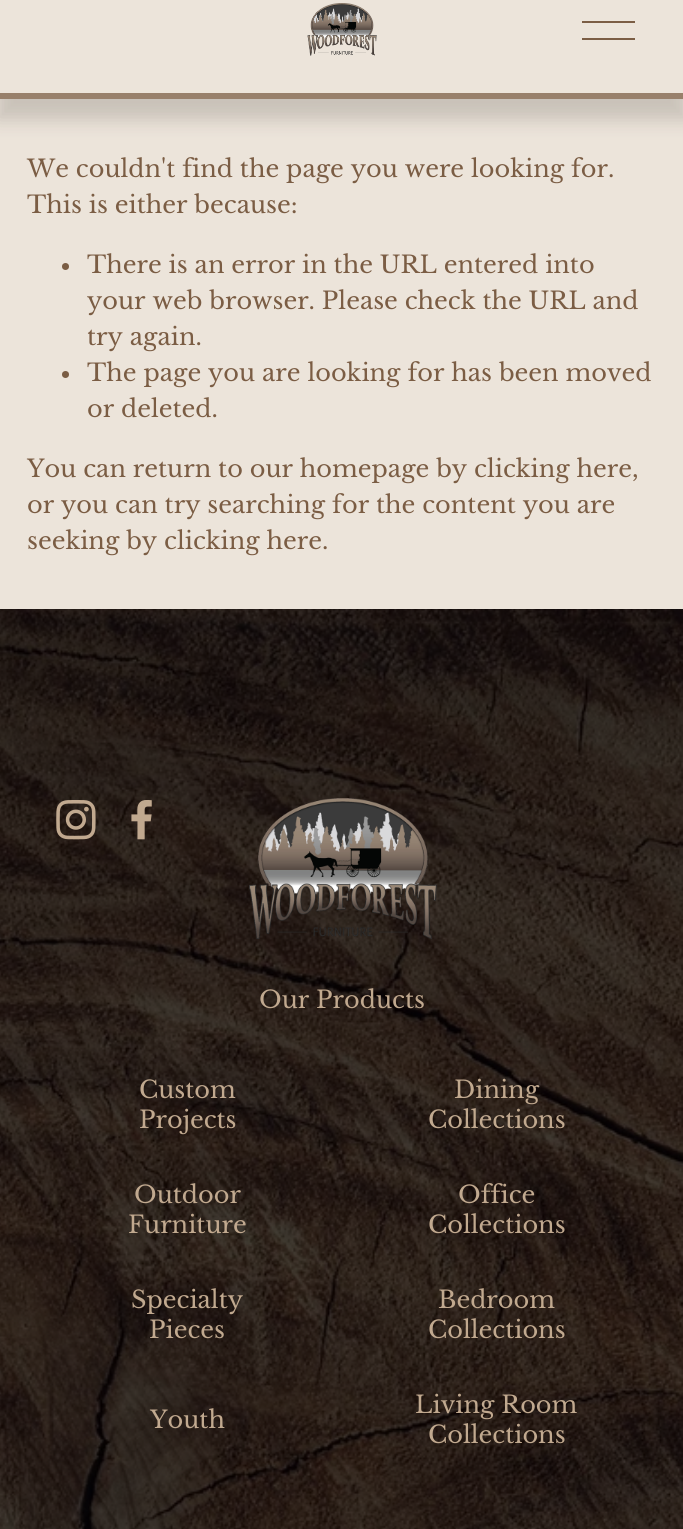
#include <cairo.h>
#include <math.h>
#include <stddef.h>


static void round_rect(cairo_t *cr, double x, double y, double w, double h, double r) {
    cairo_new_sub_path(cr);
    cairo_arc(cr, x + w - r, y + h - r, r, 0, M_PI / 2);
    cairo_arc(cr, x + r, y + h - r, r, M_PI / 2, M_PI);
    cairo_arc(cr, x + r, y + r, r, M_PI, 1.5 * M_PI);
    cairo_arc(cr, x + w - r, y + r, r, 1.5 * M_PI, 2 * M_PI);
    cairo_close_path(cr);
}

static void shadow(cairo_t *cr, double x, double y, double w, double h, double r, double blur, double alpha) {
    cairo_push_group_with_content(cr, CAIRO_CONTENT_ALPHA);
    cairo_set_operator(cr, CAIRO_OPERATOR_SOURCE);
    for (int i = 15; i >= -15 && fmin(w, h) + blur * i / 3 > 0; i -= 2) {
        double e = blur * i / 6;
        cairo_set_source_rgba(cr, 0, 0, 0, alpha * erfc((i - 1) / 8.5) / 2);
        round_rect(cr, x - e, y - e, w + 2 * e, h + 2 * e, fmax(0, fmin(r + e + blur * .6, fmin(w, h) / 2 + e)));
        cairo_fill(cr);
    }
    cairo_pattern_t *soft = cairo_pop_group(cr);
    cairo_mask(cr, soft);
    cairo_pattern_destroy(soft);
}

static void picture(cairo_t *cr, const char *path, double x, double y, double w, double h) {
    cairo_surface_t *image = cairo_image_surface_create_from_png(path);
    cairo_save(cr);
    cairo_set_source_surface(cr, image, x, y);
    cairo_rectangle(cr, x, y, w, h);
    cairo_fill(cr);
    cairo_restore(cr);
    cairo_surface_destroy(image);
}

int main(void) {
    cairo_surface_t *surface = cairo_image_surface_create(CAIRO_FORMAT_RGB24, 683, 1529);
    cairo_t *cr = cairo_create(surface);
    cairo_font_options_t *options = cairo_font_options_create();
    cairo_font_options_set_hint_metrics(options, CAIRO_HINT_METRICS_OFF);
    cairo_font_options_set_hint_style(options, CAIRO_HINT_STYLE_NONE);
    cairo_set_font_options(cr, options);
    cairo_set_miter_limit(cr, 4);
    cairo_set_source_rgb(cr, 0.925, 0.894, 0.855);
    cairo_paint(cr);
    cairo_save(cr);
    cairo_rectangle(cr, 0, 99, 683, 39);
    cairo_clip(cr);
    cairo_set_source_rgb(cr, 0.788, 0.761, 0.725);
    shadow(cr, -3, -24, 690, 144, 0, 9, 1);
    cairo_restore(cr);
    picture(cr, "img1.png", 307, 3, 70, 53);
    cairo_set_source_rgb(cr, 0.482, 0.365, 0.267);
    cairo_rectangle(cr, 582, 21, 53, 2);
    cairo_fill(cr);
    cairo_rectangle(cr, 582, 38, 53, 2);
    cairo_fill(cr);
    cairo_set_source_rgb(cr, 0.596, 0.502, 0.42);
    cairo_rectangle(cr, 0, 93, 683, 6);
    cairo_fill(cr);
    cairo_select_font_face(cr, "Libre Baskerville", CAIRO_FONT_SLANT_NORMAL, CAIRO_FONT_WEIGHT_NORMAL);
    cairo_set_font_size(cr, 24);
    cairo_set_source_rgb(cr, 0.482, 0.365, 0.267);
    cairo_move_to(cr, 27, 177);
    cairo_show_text(cr, "We couldn't find the page you were looking for.");
    cairo_move_to(cr, 27, 213);
    cairo_show_text(cr, "This is either because:");
    cairo_new_path(cr);
    cairo_arc(cr, 65.5, 266.5, 3.5, 0, 2 * M_PI);
    cairo_fill(cr);
    cairo_move_to(cr, 87, 273);
    cairo_show_text(cr, "There is an error in the URL entered into");
    cairo_move_to(cr, 87, 309);
    cairo_show_text(cr, "your web browser. Please check the URL and");
    cairo_move_to(cr, 87, 345);
    cairo_show_text(cr, "try again.");
    cairo_new_path(cr);
    cairo_arc(cr, 65.5, 374.5, 3.5, 0, 2 * M_PI);
    cairo_fill(cr);
    cairo_move_to(cr, 87, 381);
    cairo_show_text(cr, "The page you are looking for has been moved");
    cairo_move_to(cr, 87, 417);
    cairo_show_text(cr, "or deleted.");
    cairo_move_to(cr, 27, 477);
    cairo_show_text(cr, "You can return to our homepage by clicking here,");
    cairo_move_to(cr, 27, 513);
    cairo_show_text(cr, "or you can try searching for the content you are");
    cairo_move_to(cr, 27, 549);
    cairo_show_text(cr, "seeking by clicking here.");
    picture(cr, "img2.png", 0, 609, 683, 920);
    picture(cr, "img3.png", 56, 800, 40, 40);
    picture(cr, "img4.png", 131, 800, 21, 40);
    picture(cr, "img5.png", 249, 798, 188, 141);
    cairo_set_source_rgb(cr, 0.757, 0.663, 0.561);
    cairo_move_to(cr, 259, 1008);
    cairo_show_text(cr, "Our Products");
    cairo_move_to(cr, 139, 1098);
    cairo_show_text(cr, "Custom");
    cairo_move_to(cr, 139, 1128);
    cairo_show_text(cr, "Projects");
    cairo_move_to(cr, 454, 1098);
    cairo_show_text(cr, "Dining");
    cairo_move_to(cr, 428, 1128);
    cairo_show_text(cr, "Collections");
    cairo_move_to(cr, 134, 1203);
    cairo_show_text(cr, "Outdoor");
    cairo_move_to(cr, 128, 1233);
    cairo_show_text(cr, "Furniture");
    cairo_move_to(cr, 458, 1203);
    cairo_show_text(cr, "Office");
    cairo_move_to(cr, 428, 1233);
    cairo_show_text(cr, "Collections");
    cairo_move_to(cr, 131, 1308);
    cairo_show_text(cr, "Specialty");
    cairo_move_to(cr, 149, 1338);
    cairo_show_text(cr, "Pieces");
    cairo_move_to(cr, 438, 1308);
    cairo_show_text(cr, "Bedroom");
    cairo_move_to(cr, 428, 1338);
    cairo_show_text(cr, "Collections");
    cairo_move_to(cr, 150, 1428);
    cairo_show_text(cr, "Youth");
    cairo_move_to(cr, 415, 1413);
    cairo_show_text(cr, "Living Room");
    cairo_move_to(cr, 428, 1443);
    cairo_show_text(cr, "Collections");
    cairo_surface_write_to_png(surface, "page.png");
    cairo_font_options_destroy(options);
    cairo_destroy(cr);
    cairo_surface_destroy(surface);
    return 0;
}
